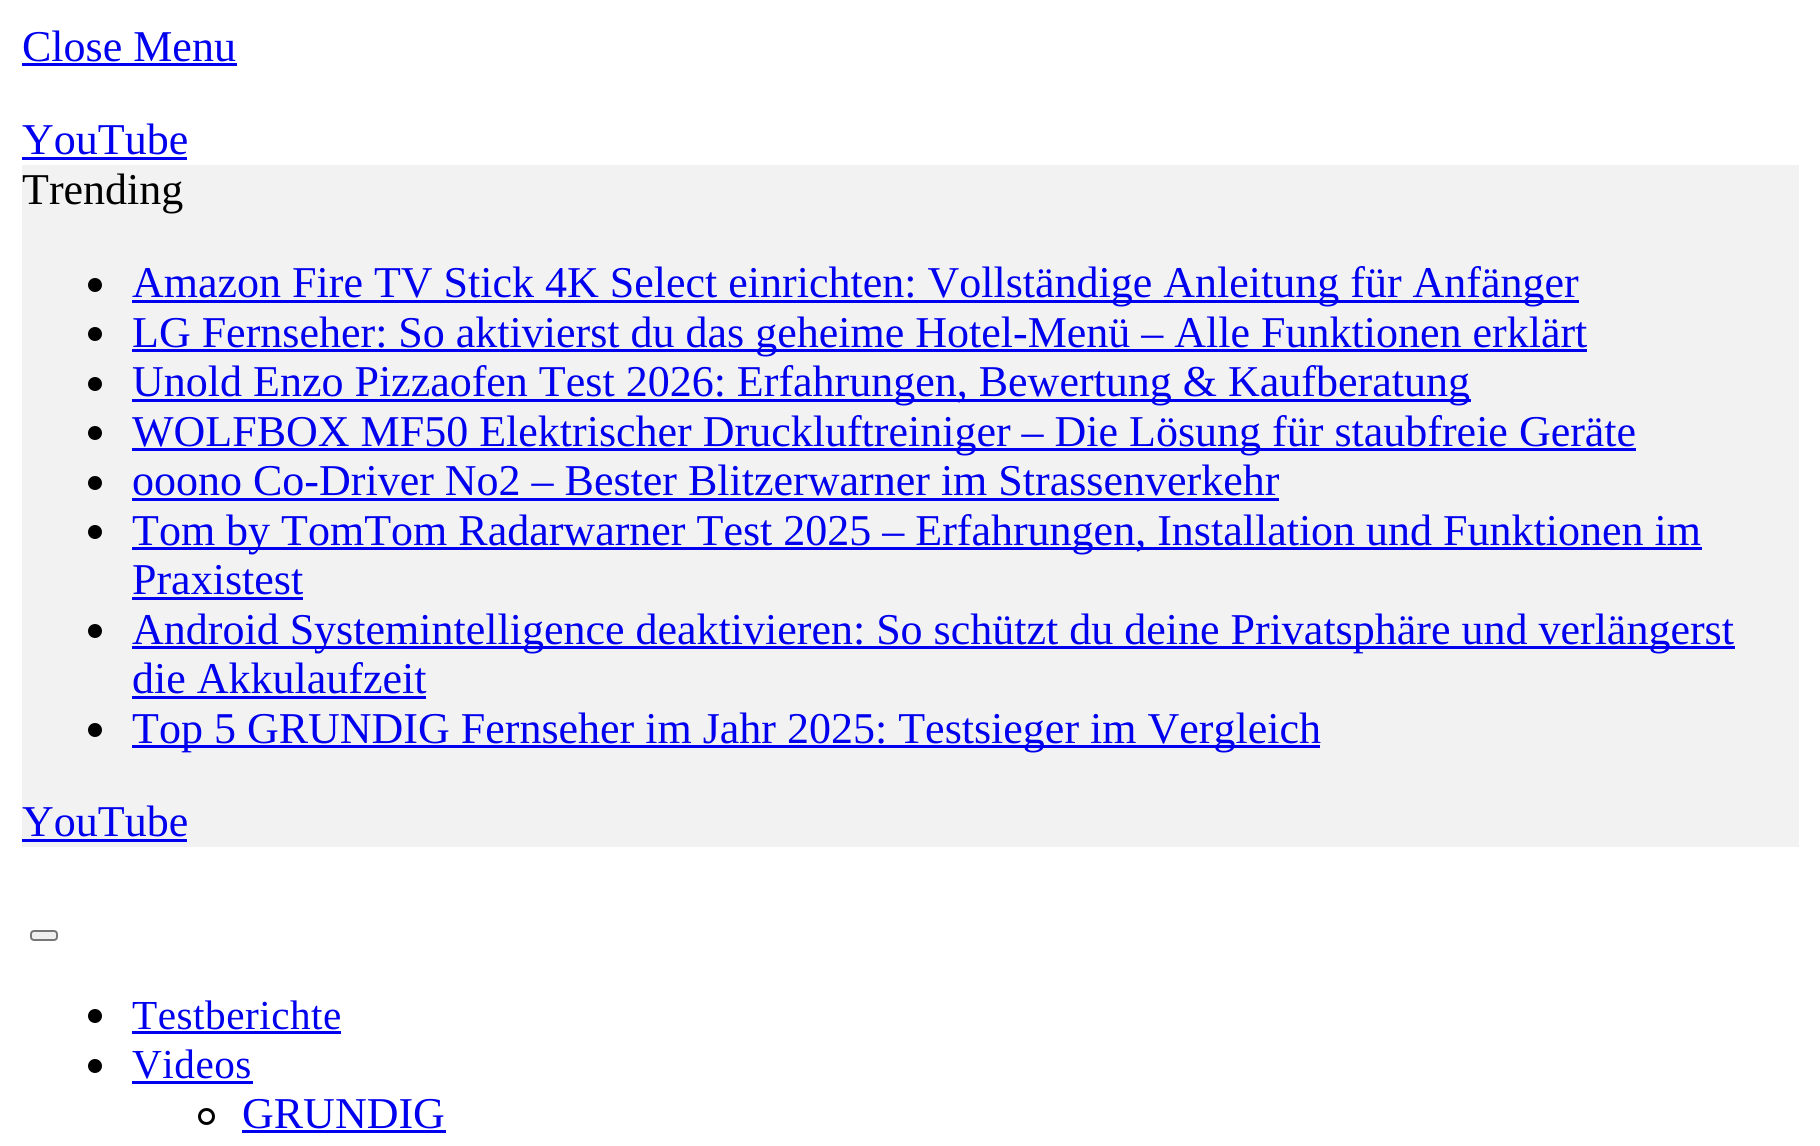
#include <cairo.h>
#include <math.h>
#include <stddef.h>


static void spaced_text(cairo_t *cr, double x, double y, const char *s, double letter, double word) {
    cairo_move_to(cr, x, y);
    while (*s) {
        char ch[5] = {0};
        int n = 0;
        do ch[n++] = *s++; while ((*s & 0xC0) == 0x80);
        cairo_show_text(cr, ch);
        cairo_rel_move_to(cr, letter + word * (*ch == ' '), 0);
    }
}

static void round_rect(cairo_t *cr, double x, double y, double w, double h, double r) {
    cairo_new_sub_path(cr);
    cairo_arc(cr, x + w - r, y + h - r, r, 0, M_PI / 2);
    cairo_arc(cr, x + r, y + h - r, r, M_PI / 2, M_PI);
    cairo_arc(cr, x + r, y + r, r, M_PI, 1.5 * M_PI);
    cairo_arc(cr, x + w - r, y + r, r, 1.5 * M_PI, 2 * M_PI);
    cairo_close_path(cr);
}

int main(void) {
    cairo_surface_t *surface = cairo_image_surface_create(CAIRO_FORMAT_RGB24, 1820, 1146);
    cairo_t *cr = cairo_create(surface);
    cairo_font_options_t *options = cairo_font_options_create();
    cairo_font_options_set_hint_metrics(options, CAIRO_HINT_METRICS_OFF);
    cairo_font_options_set_hint_style(options, CAIRO_HINT_STYLE_NONE);
    cairo_set_font_options(cr, options);
    cairo_set_miter_limit(cr, 4);
    cairo_set_source_rgb(cr, 1, 1, 1);
    cairo_paint(cr);
    cairo_select_font_face(cr, "Liberation Serif", CAIRO_FONT_SLANT_NORMAL, CAIRO_FONT_WEIGHT_NORMAL);
    cairo_set_font_size(cr, 44);
    cairo_set_source_rgb(cr, 0, 0, 0.933);
    cairo_move_to(cr, 22, 61);
    cairo_show_text(cr, "Close Menu");
    cairo_rectangle(cr, 22, 63, 215, 3);
    cairo_fill(cr);
    cairo_move_to(cr, 22, 154);
    cairo_show_text(cr, "YouTube");
    cairo_rectangle(cr, 22, 157, 165, 3);
    cairo_fill(cr);
    cairo_set_source_rgb(cr, 0.949, 0.949, 0.949);
    cairo_rectangle(cr, 22, 165, 1777, 682);
    cairo_fill(cr);
    cairo_set_source_rgb(cr, 0, 0, 0);
    cairo_move_to(cr, 22, 204);
    cairo_show_text(cr, "Trending");
    cairo_new_path(cr);
    cairo_arc(cr, 95, 285, 7, 0, 2 * M_PI);
    cairo_fill(cr);
    cairo_set_source_rgb(cr, 0, 0, 0.933);
    cairo_rectangle(cr, 132, 300, 1447, 3);
    cairo_fill(cr);
    cairo_move_to(cr, 132, 297);
    cairo_show_text(cr, "Amazon Fire TV Stick 4K Select einrichten: Vollständige Anleitung für Anfänger");
    cairo_set_source_rgb(cr, 0, 0, 0);
    cairo_new_path(cr);
    cairo_arc(cr, 95, 334, 7, 0, 2 * M_PI);
    cairo_fill(cr);
    cairo_set_source_rgb(cr, 0, 0, 0.933);
    cairo_rectangle(cr, 132, 349, 1455, 3);
    cairo_fill(cr);
    cairo_move_to(cr, 132, 347);
    cairo_show_text(cr, "LG Fernseher: So aktivierst du das geheime Hotel-Menü – Alle Funktionen erklärt");
    cairo_set_source_rgb(cr, 0, 0, 0);
    cairo_new_path(cr);
    cairo_arc(cr, 95, 384, 7, 0, 2 * M_PI);
    cairo_fill(cr);
    cairo_set_source_rgb(cr, 0, 0, 0.933);
    cairo_rectangle(cr, 132, 399, 1339, 3);
    cairo_fill(cr);
    cairo_move_to(cr, 132, 396);
    cairo_show_text(cr, "Unold Enzo Pizzaofen Test 2026: Erfahrungen, Bewertung & Kaufberatung");
    cairo_set_source_rgb(cr, 0, 0, 0);
    cairo_new_path(cr);
    cairo_arc(cr, 95, 433, 7, 0, 2 * M_PI);
    cairo_fill(cr);
    cairo_set_source_rgb(cr, 0, 0, 0.933);
    cairo_rectangle(cr, 132, 448, 1504, 3);
    cairo_fill(cr);
    cairo_move_to(cr, 132, 446);
    cairo_show_text(cr, "WOLFBOX MF50 Elektrischer Druckluftreiniger – Die Lösung für staubfreie Geräte");
    cairo_set_source_rgb(cr, 0, 0, 0);
    cairo_new_path(cr);
    cairo_arc(cr, 95, 483, 7, 0, 2 * M_PI);
    cairo_fill(cr);
    cairo_set_source_rgb(cr, 0, 0, 0.933);
    cairo_move_to(cr, 132, 495);
    cairo_show_text(cr, "ooono Co-Driver No2 – Bester Blitzerwarner im Strassenverkehr");
    cairo_rectangle(cr, 132, 498, 1147, 3);
    cairo_fill(cr);
    cairo_set_source_rgb(cr, 0, 0, 0);
    cairo_arc(cr, 95, 532, 7, 0, 2 * M_PI);
    cairo_fill(cr);
    cairo_set_source_rgb(cr, 0, 0, 0.933);
    cairo_rectangle(cr, 132, 547, 1570, 3);
    cairo_fill(cr);
    cairo_move_to(cr, 132, 545);
    cairo_show_text(cr, "Tom by TomTom Radarwarner Test 2025 – Erfahrungen, Installation und Funktionen im");
    cairo_move_to(cr, 132, 594);
    cairo_show_text(cr, "Praxistest");
    cairo_rectangle(cr, 132, 597, 171, 3);
    cairo_fill(cr);
    cairo_set_source_rgb(cr, 0, 0, 0);
    cairo_arc(cr, 95, 631, 7, 0, 2 * M_PI);
    cairo_fill(cr);
    cairo_set_source_rgb(cr, 0, 0, 0.933);
    cairo_rectangle(cr, 132, 646, 1603, 3);
    cairo_fill(cr);
    cairo_move_to(cr, 132, 644);
    cairo_show_text(cr, "Android Systemintelligence deaktivieren: So schützt du deine Privatsphäre und verlängerst");
    cairo_move_to(cr, 132, 693);
    cairo_show_text(cr, "die Akkulaufzeit");
    cairo_rectangle(cr, 132, 696, 294, 3);
    cairo_fill(cr);
    cairo_set_source_rgb(cr, 0, 0, 0);
    cairo_arc(cr, 95, 730, 7, 0, 2 * M_PI);
    cairo_fill(cr);
    cairo_set_source_rgb(cr, 0, 0, 0.933);
    cairo_rectangle(cr, 132, 745, 1188, 3);
    cairo_fill(cr);
    cairo_move_to(cr, 132, 743);
    cairo_show_text(cr, "Top 5 GRUNDIG Fernseher im Jahr 2025: Testsieger im Vergleich");
    cairo_move_to(cr, 22, 836);
    cairo_show_text(cr, "YouTube");
    cairo_rectangle(cr, 22, 839, 165, 3);
    cairo_fill(cr);
    cairo_set_source_rgb(cr, 0.937, 0.937, 0.937);
    round_rect(cr, 31, 931, 26, 9, 3);
    cairo_fill_preserve(cr);
    cairo_set_source_rgb(cr, 0.463, 0.463, 0.463);
    cairo_stroke(cr);
    cairo_set_source_rgb(cr, 0, 0, 0);
    cairo_arc(cr, 95, 1016, 7, 0, 2 * M_PI);
    cairo_fill(cr);
    cairo_set_font_size(cr, 41.25);
    cairo_set_source_rgb(cr, 0, 0, 0.933);
    spaced_text(cr, 132, 1029, "Testberichte", 0.5, 0);
    cairo_rectangle(cr, 132, 1031, 209, 3);
    cairo_fill(cr);
    cairo_set_source_rgb(cr, 0, 0, 0);
    cairo_arc(cr, 95, 1066, 7, 0, 2 * M_PI);
    cairo_fill(cr);
    cairo_set_source_rgb(cr, 0, 0, 0.933);
    spaced_text(cr, 132, 1078, "Videos", 0.5, 0);
    cairo_rectangle(cr, 132, 1081, 121, 3);
    cairo_fill(cr);
    cairo_arc(cr, 206.5, 1116.5, 7, 0, 2 * M_PI);
    cairo_set_source_rgb(cr, 0, 0, 0);
    cairo_set_line_width(cr, 3);
    cairo_stroke(cr);
    cairo_set_font_size(cr, 44);
    cairo_set_source_rgb(cr, 0, 0, 0.933);
    cairo_move_to(cr, 242, 1128);
    cairo_show_text(cr, "GRUNDIG");
    cairo_rectangle(cr, 242, 1130, 204, 3);
    cairo_fill(cr);
    cairo_surface_write_to_png(surface, "page.png");
    cairo_font_options_destroy(options);
    cairo_destroy(cr);
    cairo_surface_destroy(surface);
    return 0;
}
